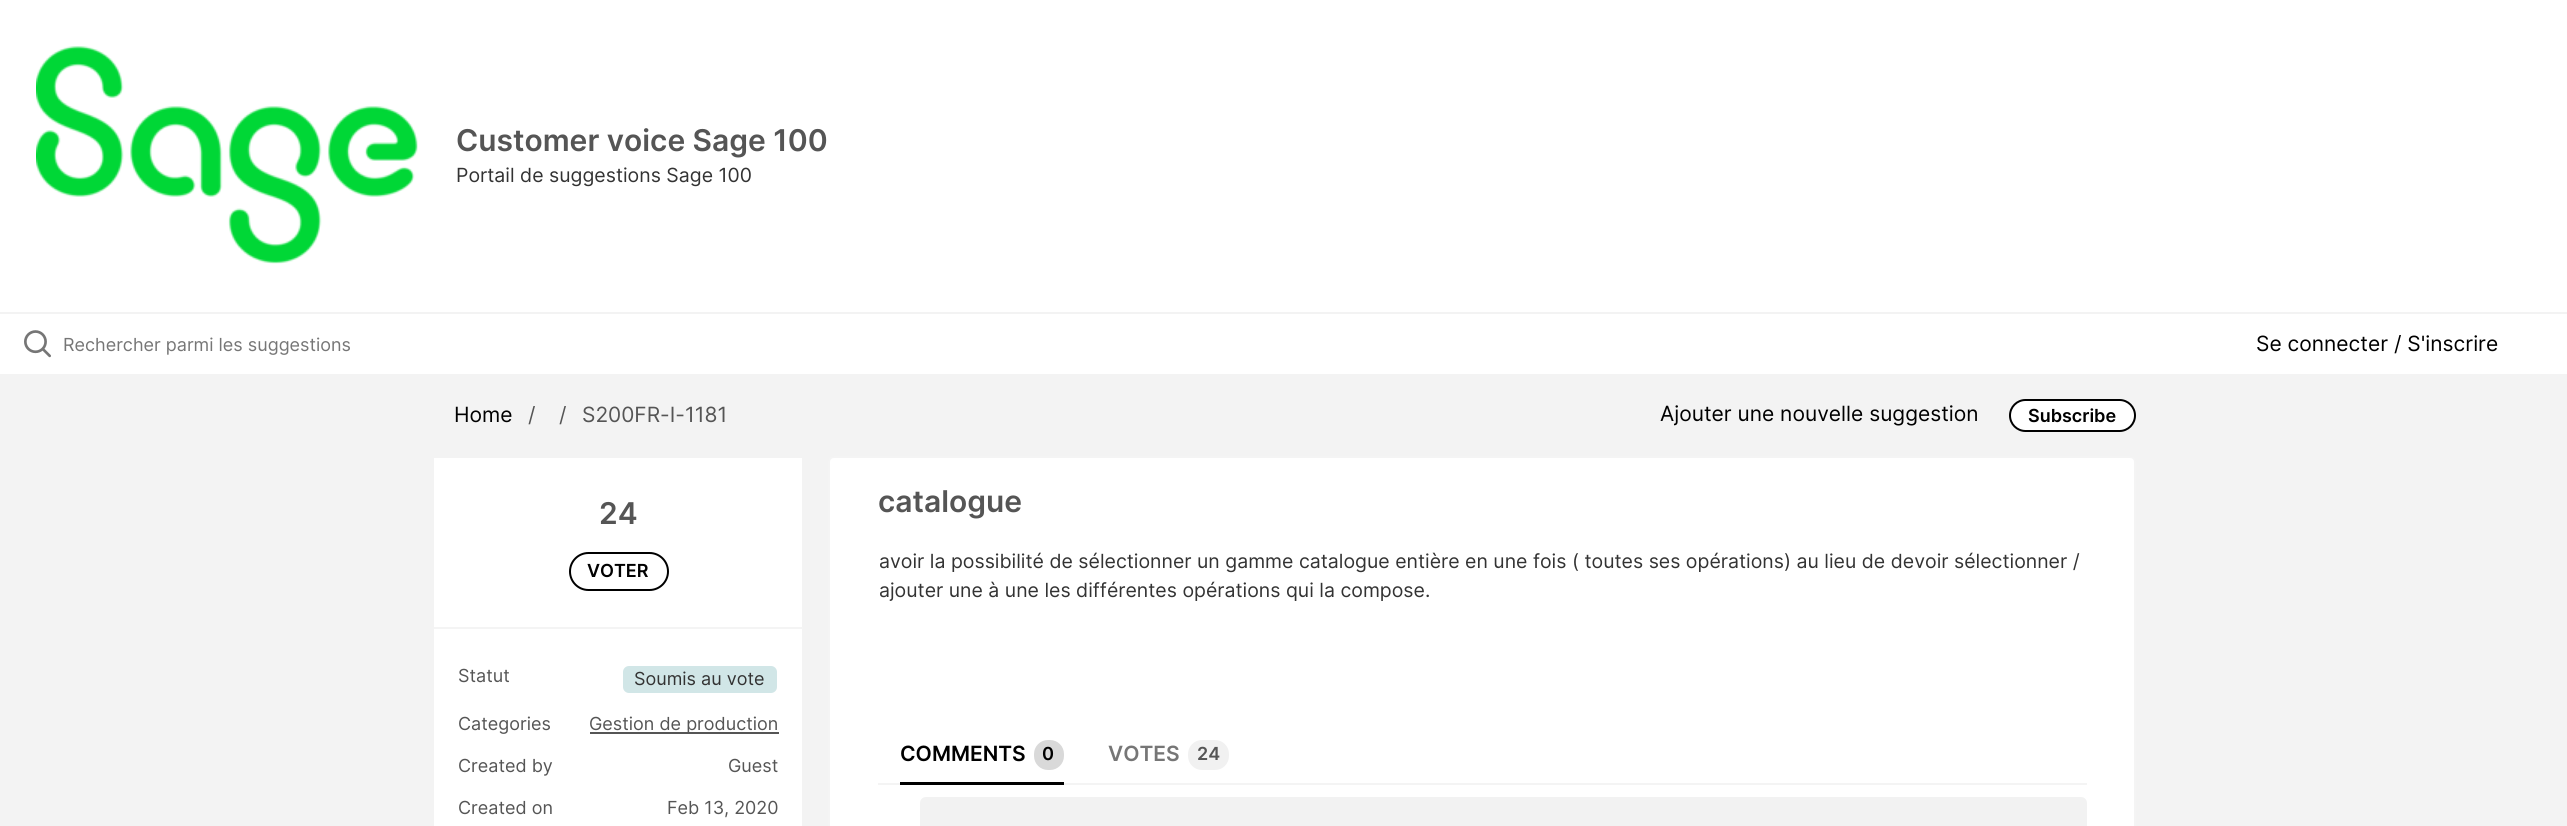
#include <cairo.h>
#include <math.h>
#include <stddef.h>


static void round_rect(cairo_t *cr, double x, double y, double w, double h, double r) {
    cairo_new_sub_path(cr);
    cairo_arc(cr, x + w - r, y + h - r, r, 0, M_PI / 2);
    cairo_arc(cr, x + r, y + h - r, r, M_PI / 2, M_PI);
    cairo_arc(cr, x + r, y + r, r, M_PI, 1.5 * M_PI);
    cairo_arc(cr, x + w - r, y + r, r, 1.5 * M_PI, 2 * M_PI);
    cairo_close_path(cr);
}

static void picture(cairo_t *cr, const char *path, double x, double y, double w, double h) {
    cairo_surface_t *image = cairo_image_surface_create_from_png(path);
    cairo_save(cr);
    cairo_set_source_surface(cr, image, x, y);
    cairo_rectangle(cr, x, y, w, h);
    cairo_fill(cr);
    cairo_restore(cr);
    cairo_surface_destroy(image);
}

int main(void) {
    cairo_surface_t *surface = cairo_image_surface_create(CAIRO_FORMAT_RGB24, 2567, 826);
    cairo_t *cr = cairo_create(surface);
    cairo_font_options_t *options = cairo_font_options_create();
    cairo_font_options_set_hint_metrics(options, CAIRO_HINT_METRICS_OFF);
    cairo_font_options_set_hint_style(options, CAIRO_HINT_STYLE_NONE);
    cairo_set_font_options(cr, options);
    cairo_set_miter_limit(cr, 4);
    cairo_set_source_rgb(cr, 0.953, 0.953, 0.953);
    cairo_paint(cr);
    cairo_set_source_rgb(cr, 1, 1, 1);
    cairo_rectangle(cr, 0, 0, 2567, 312);
    cairo_fill(cr);
    picture(cr, "img1.png", 36, 46, 382, 218);
    cairo_select_font_face(cr, "Inter SemiBold", CAIRO_FONT_SLANT_NORMAL, CAIRO_FONT_WEIGHT_NORMAL);
    cairo_set_font_size(cr, 30);
    cairo_set_source_rgb(cr, 0.333, 0.333, 0.333);
    cairo_move_to(cr, 456, 151);
    cairo_show_text(cr, "Customer voice Sage 100");
    cairo_select_font_face(cr, "Inter", CAIRO_FONT_SLANT_NORMAL, CAIRO_FONT_WEIGHT_NORMAL);
    cairo_set_font_size(cr, 19.5);
    cairo_set_source_rgb(cr, 0.2, 0.2, 0.2);
    cairo_move_to(cr, 456, 182);
    cairo_show_text(cr, "Portail de suggestions Sage 100");
    cairo_set_source_rgb(cr, 1, 1, 1);
    cairo_rectangle(cr, 0, 314, 2567, 60);
    cairo_fill(cr);
    picture(cr, "img2.png", 24, 330, 27, 28);
    cairo_set_font_size(cr, 18);
    cairo_set_source_rgb(cr, 0.463, 0.463, 0.463);
    cairo_move_to(cr, 63, 351);
    cairo_show_text(cr, "Rechercher parmi les suggestions");
    cairo_set_font_size(cr, 21);
    cairo_set_source_rgb(cr, 0, 0, 0);
    cairo_move_to(cr, 2256, 351);
    cairo_show_text(cr, "Se connecter / S'inscrire");
    cairo_move_to(cr, 454, 422);
    cairo_show_text(cr, "Home");
    cairo_set_source_rgb(cr, 0.333, 0.333, 0.333);
    cairo_move_to(cr, 528, 422);
    cairo_show_text(cr, "/");
    cairo_move_to(cr, 559, 422);
    cairo_show_text(cr, "/");
    cairo_move_to(cr, 582, 422);
    cairo_show_text(cr, "S200FR-I-1181");
    cairo_set_source_rgb(cr, 0, 0, 0);
    cairo_move_to(cr, 1660, 421);
    cairo_show_text(cr, "Ajouter une nouvelle suggestion");
    cairo_set_source_rgb(cr, 1, 1, 1);
    round_rect(cr, 2010, 400, 125, 31, 15.5);
    cairo_fill_preserve(cr);
    cairo_set_source_rgb(cr, 0, 0, 0);
    cairo_stroke(cr);
    cairo_select_font_face(cr, "Inter SemiBold", CAIRO_FONT_SLANT_NORMAL, CAIRO_FONT_WEIGHT_NORMAL);
    cairo_set_font_size(cr, 18);
    cairo_move_to(cr, 2028, 422);
    cairo_show_text(cr, "Subscribe");
    cairo_set_source_rgb(cr, 1, 1, 1);
    cairo_rectangle(cr, 434, 458, 368, 368);
    cairo_fill(cr);
    cairo_set_font_size(cr, 30);
    cairo_set_source_rgb(cr, 0.333, 0.333, 0.333);
    cairo_move_to(cr, 599, 524);
    cairo_show_text(cr, "24");
    round_rect(cr, 570, 553, 98, 37, 18.5);
    cairo_set_source_rgb(cr, 0, 0, 0);
    cairo_stroke(cr);
    cairo_set_font_size(cr, 18);
    cairo_move_to(cr, 587, 577);
    cairo_show_text(cr, "VOTER");
    cairo_set_source_rgb(cr, 0.957, 0.957, 0.957);
    cairo_rectangle(cr, 434, 627, 369, 2);
    cairo_fill(cr);
    cairo_select_font_face(cr, "Inter", CAIRO_FONT_SLANT_NORMAL, CAIRO_FONT_WEIGHT_NORMAL);
    cairo_set_source_rgb(cr, 0.333, 0.333, 0.333);
    cairo_move_to(cr, 458, 682);
    cairo_show_text(cr, "Statut");
    cairo_set_source_rgb(cr, 0.82, 0.902, 0.906);
    round_rect(cr, 623, 666, 154, 27, 6);
    cairo_fill(cr);
    cairo_set_source_rgb(cr, 0.2, 0.2, 0.2);
    cairo_move_to(cr, 634, 685);
    cairo_show_text(cr, "Soumis au vote");
    cairo_set_source_rgb(cr, 0.333, 0.333, 0.333);
    cairo_move_to(cr, 458, 730);
    cairo_show_text(cr, "Categories");
    cairo_rectangle(cr, 590, 732, 189, 2);
    cairo_fill(cr);
    cairo_move_to(cr, 589, 730);
    cairo_show_text(cr, "Gestion de production");
    cairo_move_to(cr, 458, 772);
    cairo_show_text(cr, "Created by");
    cairo_move_to(cr, 728, 772);
    cairo_show_text(cr, "Guest");
    cairo_move_to(cr, 458, 814);
    cairo_show_text(cr, "Created on");
    cairo_move_to(cr, 667, 814);
    cairo_show_text(cr, "Feb 13, 2020");
    cairo_set_source_rgb(cr, 1, 1, 1);
    round_rect(cr, 829, 457, 1306, 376, 5);
    cairo_fill_preserve(cr);
    cairo_set_source_rgb(cr, 0.957, 0.957, 0.957);
    cairo_stroke(cr);
    cairo_select_font_face(cr, "Inter SemiBold", CAIRO_FONT_SLANT_NORMAL, CAIRO_FONT_WEIGHT_NORMAL);
    cairo_set_font_size(cr, 30);
    cairo_set_source_rgb(cr, 0.333, 0.333, 0.333);
    cairo_move_to(cr, 878, 512);
    cairo_show_text(cr, "catalogue");
    cairo_select_font_face(cr, "Inter", CAIRO_FONT_SLANT_NORMAL, CAIRO_FONT_WEIGHT_NORMAL);
    cairo_set_font_size(cr, 19.5);
    cairo_set_source_rgb(cr, 0.2, 0.2, 0.2);
    cairo_move_to(cr, 879, 568);
    cairo_show_text(cr, "avoir la possibilité de sélectionner un gamme catalogue entière en une fois ( toutes ses opérations) au lieu de devoir sélectionner /");
    cairo_move_to(cr, 879, 597);
    cairo_show_text(cr, "ajouter une à une les différentes opérations qui la compose.");
    cairo_set_source_rgb(cr, 0.957, 0.957, 0.957);
    cairo_rectangle(cr, 878, 783, 1209, 2);
    cairo_fill(cr);
    cairo_set_source_rgb(cr, 0, 0, 0);
    cairo_rectangle(cr, 900, 782, 164, 3);
    cairo_fill(cr);
    cairo_select_font_face(cr, "Inter SemiBold", CAIRO_FONT_SLANT_NORMAL, CAIRO_FONT_WEIGHT_NORMAL);
    cairo_set_font_size(cr, 21);
    cairo_move_to(cr, 900, 761);
    cairo_show_text(cr, "COMMENTS");
    cairo_set_source_rgb(cr, 0.851, 0.851, 0.851);
    round_rect(cr, 1034, 740, 30, 30, 14);
    cairo_fill(cr);
    cairo_set_font_size(cr, 18);
    cairo_set_source_rgb(cr, 0, 0, 0);
    cairo_move_to(cr, 1042, 760);
    cairo_show_text(cr, "0");
    cairo_set_font_size(cr, 21);
    cairo_set_source_rgb(cr, 0.463, 0.463, 0.463);
    cairo_move_to(cr, 1108, 761);
    cairo_show_text(cr, "VOTES");
    cairo_set_source_rgb(cr, 0.945, 0.945, 0.945);
    round_rect(cr, 1188, 740, 41, 30, 14);
    cairo_fill(cr);
    cairo_set_font_size(cr, 18);
    cairo_set_source_rgb(cr, 0.333, 0.333, 0.333);
    cairo_move_to(cr, 1197, 760);
    cairo_show_text(cr, "24");
    cairo_set_source_rgb(cr, 0.949, 0.949, 0.949);
    round_rect(cr, 920, 797, 1167, 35, 6);
    cairo_fill(cr);
    cairo_surface_write_to_png(surface, "page.png");
    cairo_font_options_destroy(options);
    cairo_destroy(cr);
    cairo_surface_destroy(surface);
    return 0;
}
